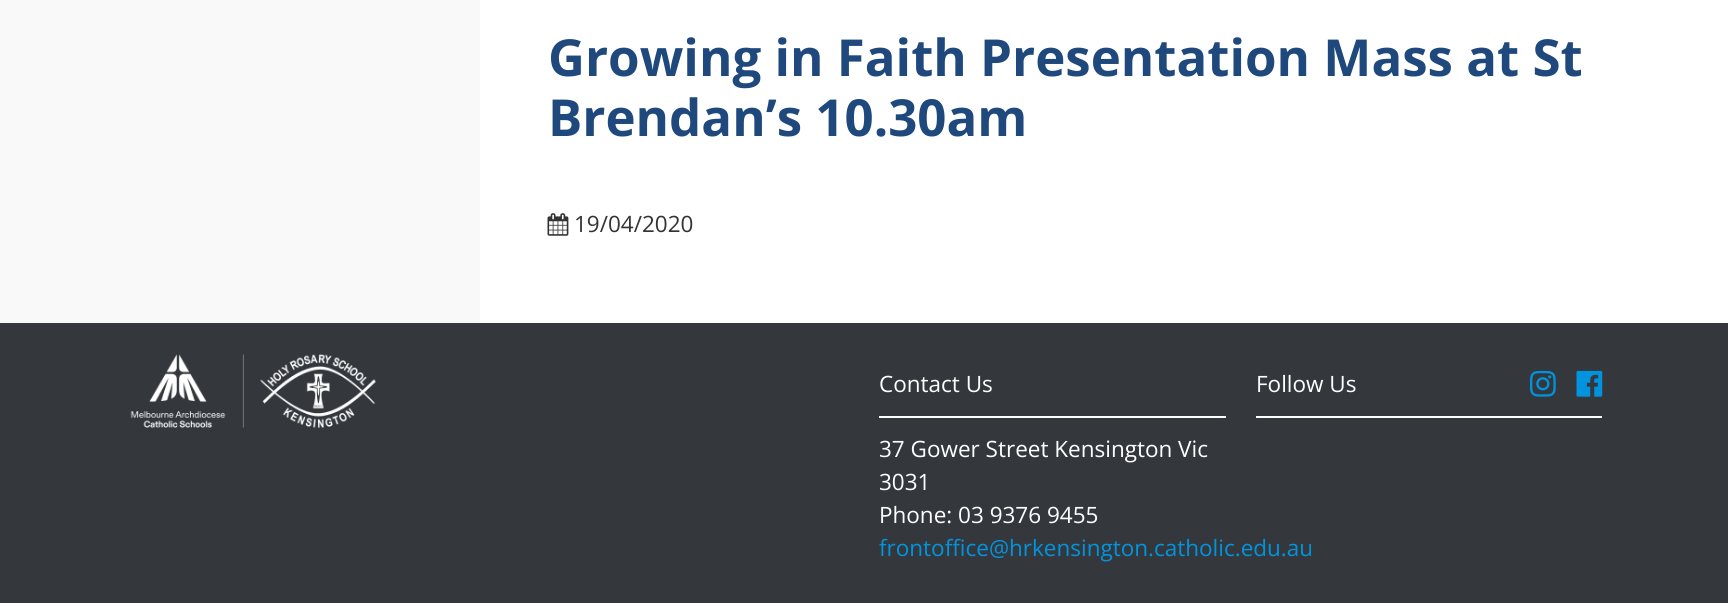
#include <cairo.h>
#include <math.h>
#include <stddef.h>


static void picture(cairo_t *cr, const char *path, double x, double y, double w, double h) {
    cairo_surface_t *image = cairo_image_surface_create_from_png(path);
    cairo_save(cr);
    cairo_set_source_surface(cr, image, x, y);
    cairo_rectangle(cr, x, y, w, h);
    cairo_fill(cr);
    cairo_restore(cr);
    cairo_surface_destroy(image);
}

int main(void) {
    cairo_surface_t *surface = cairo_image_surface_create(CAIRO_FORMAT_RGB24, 1728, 603);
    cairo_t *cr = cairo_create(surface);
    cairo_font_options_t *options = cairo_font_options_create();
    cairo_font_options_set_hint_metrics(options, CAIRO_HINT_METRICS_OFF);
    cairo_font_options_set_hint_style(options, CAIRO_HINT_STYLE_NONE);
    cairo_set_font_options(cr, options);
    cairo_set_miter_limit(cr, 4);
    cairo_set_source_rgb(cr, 1, 1, 1);
    cairo_paint(cr);
    cairo_set_source_rgb(cr, 0.976, 0.976, 0.976);
    cairo_rectangle(cr, 0, 0, 480, 323);
    cairo_fill(cr);
    cairo_select_font_face(cr, "Open Sans", CAIRO_FONT_SLANT_NORMAL, CAIRO_FONT_WEIGHT_BOLD);
    cairo_set_font_size(cr, 51);
    cairo_set_source_rgb(cr, 0.122, 0.286, 0.486);
    cairo_move_to(cr, 548, 76);
    cairo_show_text(cr, "Growing in Faith Presentation Mass at St");
    cairo_move_to(cr, 548, 136);
    cairo_show_text(cr, "Brendan’s 10.30am");
    picture(cr, "img1.png", 547, 213, 22, 23);
    cairo_select_font_face(cr, "Open Sans", CAIRO_FONT_SLANT_NORMAL, CAIRO_FONT_WEIGHT_NORMAL);
    cairo_set_font_size(cr, 22.5);
    cairo_set_source_rgb(cr, 0.2, 0.2, 0.2);
    cairo_move_to(cr, 574, 232);
    cairo_show_text(cr, "19/04/2020");
    cairo_set_source_rgb(cr, 0.204, 0.22, 0.239);
    cairo_rectangle(cr, 0, 323, 1728, 280);
    cairo_fill(cr);
    picture(cr, "img2.png", 130, 354, 246, 74);
    cairo_set_source_rgb(cr, 1, 1, 1);
    cairo_rectangle(cr, 1256, 416, 346, 2);
    cairo_fill(cr);
    cairo_move_to(cr, 1256, 392);
    cairo_show_text(cr, "Follow Us");
    picture(cr, "img3.png", 1530, 370, 26, 27);
    picture(cr, "img4.png", 1576, 370, 27, 27);
    cairo_rectangle(cr, 879, 416, 347, 2);
    cairo_fill(cr);
    cairo_move_to(cr, 879, 392);
    cairo_show_text(cr, "Contact Us");
    cairo_move_to(cr, 879, 457);
    cairo_show_text(cr, "37 Gower Street Kensington Vic");
    cairo_move_to(cr, 879, 490);
    cairo_show_text(cr, "3031");
    cairo_move_to(cr, 879, 523);
    cairo_show_text(cr, "Phone: 03 9376 9455");
    cairo_set_source_rgb(cr, 0, 0.58, 0.871);
    cairo_move_to(cr, 879, 556);
    cairo_show_text(cr, "frontoffice@hrkensington.catholic.edu.au");
    cairo_surface_write_to_png(surface, "page.png");
    cairo_font_options_destroy(options);
    cairo_destroy(cr);
    cairo_surface_destroy(surface);
    return 0;
}
